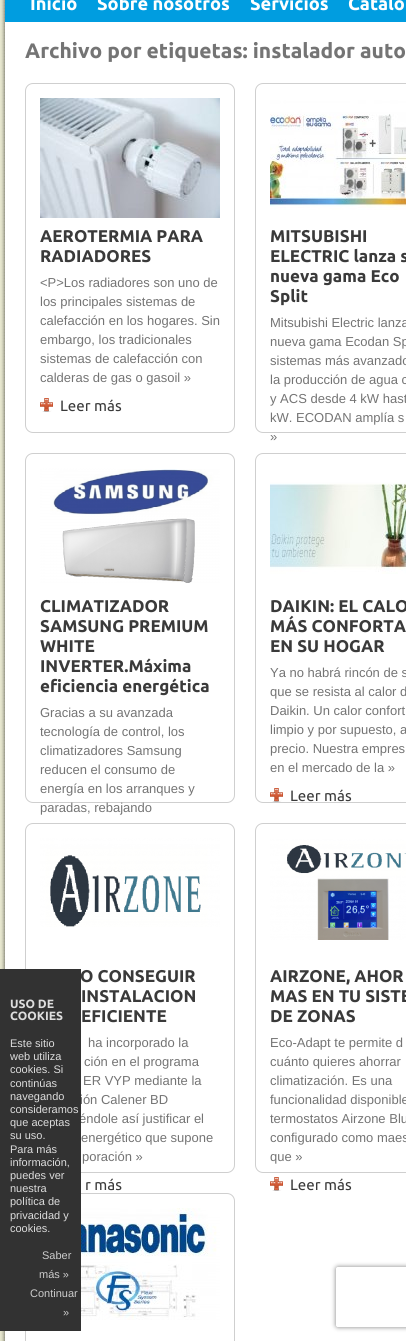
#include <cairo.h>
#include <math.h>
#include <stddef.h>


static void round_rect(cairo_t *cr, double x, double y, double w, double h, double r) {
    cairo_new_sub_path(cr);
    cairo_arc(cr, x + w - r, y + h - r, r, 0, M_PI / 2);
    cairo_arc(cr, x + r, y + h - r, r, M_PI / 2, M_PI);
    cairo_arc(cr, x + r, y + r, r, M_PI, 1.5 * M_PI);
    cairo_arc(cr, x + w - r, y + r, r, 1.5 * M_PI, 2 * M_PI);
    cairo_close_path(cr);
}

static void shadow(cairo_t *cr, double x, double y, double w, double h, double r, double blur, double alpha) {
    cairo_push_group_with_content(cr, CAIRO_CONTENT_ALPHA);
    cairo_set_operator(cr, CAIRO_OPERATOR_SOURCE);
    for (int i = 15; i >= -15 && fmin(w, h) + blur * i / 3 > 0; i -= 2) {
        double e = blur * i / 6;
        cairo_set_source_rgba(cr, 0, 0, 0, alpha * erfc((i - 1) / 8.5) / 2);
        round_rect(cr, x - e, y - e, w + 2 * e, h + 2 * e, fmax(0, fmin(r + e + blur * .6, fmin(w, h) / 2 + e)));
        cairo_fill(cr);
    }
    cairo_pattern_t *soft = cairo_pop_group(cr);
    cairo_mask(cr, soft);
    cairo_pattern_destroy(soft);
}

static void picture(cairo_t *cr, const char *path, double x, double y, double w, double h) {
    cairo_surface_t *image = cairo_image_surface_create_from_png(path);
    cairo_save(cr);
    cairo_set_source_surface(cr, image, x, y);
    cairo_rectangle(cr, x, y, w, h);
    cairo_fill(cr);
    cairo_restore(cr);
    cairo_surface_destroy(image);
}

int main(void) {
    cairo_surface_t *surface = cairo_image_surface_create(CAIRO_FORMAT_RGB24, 406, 1341);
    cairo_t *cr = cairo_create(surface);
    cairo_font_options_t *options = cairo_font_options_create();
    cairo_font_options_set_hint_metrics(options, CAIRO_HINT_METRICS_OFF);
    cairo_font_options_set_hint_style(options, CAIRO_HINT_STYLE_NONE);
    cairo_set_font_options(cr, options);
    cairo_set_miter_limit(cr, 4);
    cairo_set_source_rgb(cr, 0.902, 0.902, 0.808);
    cairo_paint(cr);
    picture(cr, "img1.png", 1, 0, 405, 1341);
    cairo_set_source_rgb(cr, 0, 0.616, 0.878);
    cairo_rectangle(cr, 5, 0, 401, 22);
    cairo_fill(cr);
    cairo_select_font_face(cr, "Ubuntu", CAIRO_FONT_SLANT_NORMAL, CAIRO_FONT_WEIGHT_BOLD);
    cairo_set_font_size(cr, 18.25);
    cairo_set_source_rgb(cr, 1, 1, 1);
    cairo_move_to(cr, 30, 10);
    cairo_show_text(cr, "Inicio");
    cairo_move_to(cr, 97, 10);
    cairo_show_text(cr, "Sobre nosotros");
    cairo_move_to(cr, 250, 10);
    cairo_show_text(cr, "Servicios");
    cairo_move_to(cr, 348, 10);
    cairo_show_text(cr, "Catálo");
    cairo_save(cr);
    cairo_rectangle(cr, 25, 42, 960, 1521);
    cairo_clip(cr);
    cairo_set_font_size(cr, 21);
    cairo_set_source_rgb(cr, 0.455, 0.455, 0.455);
    cairo_move_to(cr, 25, 58);
    cairo_show_text(cr, "Archivo por etiquetas: instalador auto");
    cairo_restore(cr);
    round_rect(cr, 25.5, 83.5, 209, 349, 7.5);
    cairo_set_source_rgb(cr, 0.812, 0.812, 0.812);
    cairo_set_line_width(cr, 1);
    cairo_stroke(cr);
    picture(cr, "img2.png", 40, 98, 180, 120);
    cairo_set_font_size(cr, 17);
    cairo_set_source_rgb(cr, 0.227, 0.227, 0.227);
    cairo_move_to(cr, 40, 242);
    cairo_show_text(cr, "AEROTERMIA PARA");
    cairo_move_to(cr, 40, 262);
    cairo_show_text(cr, "RADIADORES");
    cairo_select_font_face(cr, "Liberation Sans", CAIRO_FONT_SLANT_NORMAL, CAIRO_FONT_WEIGHT_NORMAL);
    cairo_set_font_size(cr, 13);
    cairo_set_source_rgb(cr, 0.455, 0.455, 0.455);
    cairo_move_to(cr, 40, 287);
    cairo_show_text(cr, "<P>Los radiadores son uno de");
    cairo_move_to(cr, 40, 306);
    cairo_show_text(cr, "los principales sistemas de");
    cairo_move_to(cr, 40, 325);
    cairo_show_text(cr, "calefacción en los hogares. Sin");
    cairo_move_to(cr, 40, 344);
    cairo_show_text(cr, "embargo, los tradicionales");
    cairo_move_to(cr, 40, 363);
    cairo_show_text(cr, "sistemas de calefacción con");
    cairo_move_to(cr, 40, 382);
    cairo_show_text(cr, "calderas de gas o gasoil »");
    picture(cr, "img3.png", 40, 398, 13, 14);
    cairo_select_font_face(cr, "Ubuntu", CAIRO_FONT_SLANT_NORMAL, CAIRO_FONT_WEIGHT_NORMAL);
    cairo_set_font_size(cr, 15);
    cairo_set_source_rgb(cr, 0.227, 0.227, 0.227);
    cairo_move_to(cr, 60, 411);
    cairo_show_text(cr, "Leer más");
    round_rect(cr, 255.5, 83.5, 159, 349, 7.5);
    cairo_set_source_rgb(cr, 0.812, 0.812, 0.812);
    cairo_stroke(cr);
    picture(cr, "img4.png", 270, 99, 136, 111);
    cairo_select_font_face(cr, "Ubuntu", CAIRO_FONT_SLANT_NORMAL, CAIRO_FONT_WEIGHT_BOLD);
    cairo_set_font_size(cr, 17);
    cairo_set_source_rgb(cr, 0.227, 0.227, 0.227);
    cairo_move_to(cr, 270, 242);
    cairo_show_text(cr, "MITSUBISHI");
    cairo_move_to(cr, 270, 262);
    cairo_show_text(cr, "ELECTRIC lanza s");
    cairo_move_to(cr, 270, 282);
    cairo_show_text(cr, "nueva gama Eco");
    cairo_move_to(cr, 270, 302);
    cairo_show_text(cr, "Split");
    cairo_select_font_face(cr, "Liberation Sans", CAIRO_FONT_SLANT_NORMAL, CAIRO_FONT_WEIGHT_NORMAL);
    cairo_set_font_size(cr, 13);
    cairo_set_source_rgb(cr, 0.455, 0.455, 0.455);
    cairo_move_to(cr, 270, 327);
    cairo_show_text(cr, "Mitsubishi Electric lanza");
    cairo_move_to(cr, 270, 346);
    cairo_show_text(cr, "nueva gama Ecodan Sp");
    cairo_move_to(cr, 270, 365);
    cairo_show_text(cr, "sistemas más avanzado");
    cairo_move_to(cr, 270, 384);
    cairo_show_text(cr, "la producción de agua c");
    cairo_move_to(cr, 270, 403);
    cairo_show_text(cr, "y ACS desde 4 kW hast");
    cairo_move_to(cr, 270, 422);
    cairo_show_text(cr, "kW. ECODAN amplía s");
    cairo_move_to(cr, 270, 441);
    cairo_show_text(cr, "»");
    round_rect(cr, 25.5, 453.5, 209, 349, 7.5);
    cairo_set_source_rgb(cr, 0.812, 0.812, 0.812);
    cairo_stroke(cr);
    picture(cr, "img5.png", 40, 468, 180, 115);
    cairo_select_font_face(cr, "Ubuntu", CAIRO_FONT_SLANT_NORMAL, CAIRO_FONT_WEIGHT_BOLD);
    cairo_set_font_size(cr, 17);
    cairo_set_source_rgb(cr, 0.227, 0.227, 0.227);
    cairo_move_to(cr, 40, 612);
    cairo_show_text(cr, "CLIMATIZADOR");
    cairo_move_to(cr, 40, 632);
    cairo_show_text(cr, "SAMSUNG PREMIUM");
    cairo_move_to(cr, 40, 652);
    cairo_show_text(cr, "WHITE");
    cairo_move_to(cr, 40, 672);
    cairo_show_text(cr, "INVERTER.Máxima");
    cairo_move_to(cr, 40, 692);
    cairo_show_text(cr, "eficiencia energética");
    cairo_select_font_face(cr, "Liberation Sans", CAIRO_FONT_SLANT_NORMAL, CAIRO_FONT_WEIGHT_NORMAL);
    cairo_set_font_size(cr, 13);
    cairo_set_source_rgb(cr, 0.455, 0.455, 0.455);
    cairo_move_to(cr, 40, 717);
    cairo_show_text(cr, "Gracias a su avanzada");
    cairo_move_to(cr, 40, 736);
    cairo_show_text(cr, "tecnología de control, los");
    cairo_move_to(cr, 40, 755);
    cairo_show_text(cr, "climatizadores Samsung");
    cairo_move_to(cr, 40, 774);
    cairo_show_text(cr, "reducen el consumo de");
    cairo_move_to(cr, 40, 793);
    cairo_show_text(cr, "energía en los arranques y");
    cairo_move_to(cr, 40, 812);
    cairo_show_text(cr, "paradas, rebajando");
    round_rect(cr, 255.5, 453.5, 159, 349, 7.5);
    cairo_set_source_rgb(cr, 0.812, 0.812, 0.812);
    cairo_stroke(cr);
    picture(cr, "img6.png", 270, 469, 136, 105);
    cairo_select_font_face(cr, "Ubuntu", CAIRO_FONT_SLANT_NORMAL, CAIRO_FONT_WEIGHT_BOLD);
    cairo_set_font_size(cr, 17);
    cairo_set_source_rgb(cr, 0.227, 0.227, 0.227);
    cairo_move_to(cr, 270, 612);
    cairo_show_text(cr, "DAIKIN: EL CALO");
    cairo_move_to(cr, 270, 632);
    cairo_show_text(cr, "MÁS CONFORTA");
    cairo_move_to(cr, 270, 652);
    cairo_show_text(cr, "EN SU HOGAR");
    cairo_select_font_face(cr, "Liberation Sans", CAIRO_FONT_SLANT_NORMAL, CAIRO_FONT_WEIGHT_NORMAL);
    cairo_set_font_size(cr, 13);
    cairo_set_source_rgb(cr, 0.455, 0.455, 0.455);
    cairo_move_to(cr, 270, 677);
    cairo_show_text(cr, "Ya no habrá rincón de s");
    cairo_move_to(cr, 270, 696);
    cairo_show_text(cr, "que se resista al calor d");
    cairo_move_to(cr, 270, 715);
    cairo_show_text(cr, "Daikin. Un calor confort");
    cairo_move_to(cr, 270, 734);
    cairo_show_text(cr, "limpio y por supuesto, a");
    cairo_move_to(cr, 270, 753);
    cairo_show_text(cr, "precio. Nuestra empres");
    cairo_move_to(cr, 270, 772);
    cairo_show_text(cr, "en el mercado de la »");
    picture(cr, "img3.png", 270, 788, 13, 14);
    cairo_select_font_face(cr, "Ubuntu", CAIRO_FONT_SLANT_NORMAL, CAIRO_FONT_WEIGHT_NORMAL);
    cairo_set_font_size(cr, 15);
    cairo_set_source_rgb(cr, 0.227, 0.227, 0.227);
    cairo_move_to(cr, 290, 801);
    cairo_show_text(cr, "Leer más");
    round_rect(cr, 25.5, 823.5, 209, 349, 7.5);
    cairo_set_source_rgb(cr, 0.812, 0.812, 0.812);
    cairo_stroke(cr);
    picture(cr, "img7.png", 40, 838, 180, 89);
    cairo_select_font_face(cr, "Ubuntu", CAIRO_FONT_SLANT_NORMAL, CAIRO_FONT_WEIGHT_BOLD);
    cairo_set_font_size(cr, 17);
    cairo_set_source_rgb(cr, 0.227, 0.227, 0.227);
    cairo_move_to(cr, 80, 982);
    cairo_show_text(cr, "O CONSEGUIR");
    cairo_move_to(cr, 81, 1002);
    cairo_show_text(cr, "INSTALACION");
    cairo_move_to(cr, 81, 1022);
    cairo_show_text(cr, "EFICIENTE");
    cairo_select_font_face(cr, "Liberation Sans", CAIRO_FONT_SLANT_NORMAL, CAIRO_FONT_WEIGHT_NORMAL);
    cairo_set_font_size(cr, 13);
    cairo_set_source_rgb(cr, 0.455, 0.455, 0.455);
    cairo_move_to(cr, 88, 1047);
    cairo_show_text(cr, "ha incorporado la");
    cairo_move_to(cr, 84, 1066);
    cairo_show_text(cr, "ción en el programa");
    cairo_move_to(cr, 83, 1085);
    cairo_show_text(cr, "ER VYP mediante la");
    cairo_move_to(cr, 80, 1104);
    cairo_show_text(cr, "ión Calener BD");
    cairo_move_to(cr, 79, 1123);
    cairo_show_text(cr, "éndole así justificar el");
    cairo_move_to(cr, 81, 1142);
    cairo_show_text(cr, "energético que supone");
    cairo_move_to(cr, 82, 1161);
    cairo_show_text(cr, "poración »");
    cairo_select_font_face(cr, "Ubuntu", CAIRO_FONT_SLANT_NORMAL, CAIRO_FONT_WEIGHT_NORMAL);
    cairo_set_font_size(cr, 15);
    cairo_set_source_rgb(cr, 0.227, 0.227, 0.227);
    cairo_move_to(cr, 85, 1190);
    cairo_show_text(cr, "r más");
    round_rect(cr, 255.5, 823.5, 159, 349, 7.5);
    cairo_set_source_rgb(cr, 0.812, 0.812, 0.812);
    cairo_stroke(cr);
    picture(cr, "img8.png", 270, 839, 136, 101);
    cairo_select_font_face(cr, "Ubuntu", CAIRO_FONT_SLANT_NORMAL, CAIRO_FONT_WEIGHT_BOLD);
    cairo_set_font_size(cr, 17);
    cairo_set_source_rgb(cr, 0.227, 0.227, 0.227);
    cairo_move_to(cr, 270, 982);
    cairo_show_text(cr, "AIRZONE, AHOR");
    cairo_move_to(cr, 270, 1002);
    cairo_show_text(cr, "MAS EN TU SISTE");
    cairo_move_to(cr, 270, 1022);
    cairo_show_text(cr, "DE ZONAS");
    cairo_select_font_face(cr, "Liberation Sans", CAIRO_FONT_SLANT_NORMAL, CAIRO_FONT_WEIGHT_NORMAL);
    cairo_set_font_size(cr, 13);
    cairo_set_source_rgb(cr, 0.455, 0.455, 0.455);
    cairo_move_to(cr, 270, 1047);
    cairo_show_text(cr, "Eco-Adapt te permite d");
    cairo_move_to(cr, 270, 1066);
    cairo_show_text(cr, "cuánto quieres ahorrar");
    cairo_move_to(cr, 270, 1085);
    cairo_show_text(cr, "climatización. Es una");
    cairo_move_to(cr, 270, 1104);
    cairo_show_text(cr, "funcionalidad disponible");
    cairo_move_to(cr, 270, 1123);
    cairo_show_text(cr, "termostatos Airzone Blu");
    cairo_move_to(cr, 270, 1142);
    cairo_show_text(cr, "configurado como maes");
    cairo_move_to(cr, 270, 1161);
    cairo_show_text(cr, "que »");
    picture(cr, "img3.png", 270, 1177, 13, 14);
    cairo_select_font_face(cr, "Ubuntu", CAIRO_FONT_SLANT_NORMAL, CAIRO_FONT_WEIGHT_NORMAL);
    cairo_set_font_size(cr, 15);
    cairo_set_source_rgb(cr, 0.227, 0.227, 0.227);
    cairo_move_to(cr, 290, 1190);
    cairo_show_text(cr, "Leer más");
    round_rect(cr, 25.5, 1193.5, 209, 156, 7.5);
    cairo_set_source_rgb(cr, 0.812, 0.812, 0.812);
    cairo_stroke(cr);
    picture(cr, "img9.png", 81, 1208, 139, 112);
    cairo_set_source_rgb(cr, 0.196, 0.196, 0.196);
    cairo_rectangle(cr, 0, 969, 81, 362);
    cairo_fill(cr);
    cairo_select_font_face(cr, "Ubuntu", CAIRO_FONT_SLANT_NORMAL, CAIRO_FONT_WEIGHT_BOLD);
    cairo_set_font_size(cr, 12);
    cairo_set_source_rgb(cr, 0.867, 0.867, 0.867);
    cairo_move_to(cr, 10, 1008);
    cairo_show_text(cr, "USO DE");
    cairo_move_to(cr, 10, 1020);
    cairo_show_text(cr, "COOKIES");
    cairo_select_font_face(cr, "Liberation Sans", CAIRO_FONT_SLANT_NORMAL, CAIRO_FONT_WEIGHT_NORMAL);
    cairo_set_font_size(cr, 11);
    cairo_move_to(cr, 10, 1047);
    cairo_show_text(cr, "Este sitio");
    cairo_move_to(cr, 10, 1060);
    cairo_show_text(cr, "web utiliza");
    cairo_move_to(cr, 10, 1073);
    cairo_show_text(cr, "cookies. Si");
    cairo_move_to(cr, 10, 1087);
    cairo_show_text(cr, "continúas");
    cairo_move_to(cr, 10, 1100);
    cairo_show_text(cr, "navegando");
    cairo_move_to(cr, 10, 1113);
    cairo_show_text(cr, "consideramos");
    cairo_move_to(cr, 10, 1126);
    cairo_show_text(cr, "que aceptas");
    cairo_move_to(cr, 10, 1139);
    cairo_show_text(cr, "su uso.");
    cairo_move_to(cr, 10, 1153);
    cairo_show_text(cr, "Para más");
    cairo_move_to(cr, 10, 1166);
    cairo_show_text(cr, "información,");
    cairo_move_to(cr, 10, 1179);
    cairo_show_text(cr, "puedes ver");
    cairo_move_to(cr, 10, 1192);
    cairo_show_text(cr, "nuestra");
    cairo_move_to(cr, 10, 1205);
    cairo_show_text(cr, "política de");
    cairo_move_to(cr, 10, 1219);
    cairo_show_text(cr, "privacidad y");
    cairo_move_to(cr, 10, 1232);
    cairo_show_text(cr, "cookies.");
    cairo_set_source_rgb(cr, 0.8, 0.8, 0.8);
    cairo_move_to(cr, 42, 1259);
    cairo_show_text(cr, "Saber");
    cairo_move_to(cr, 39, 1278);
    cairo_show_text(cr, "más »");
    cairo_move_to(cr, 30, 1297);
    cairo_show_text(cr, "Continuar");
    cairo_move_to(cr, 63, 1316);
    cairo_show_text(cr, "»");
    cairo_save(cr);
    cairo_set_fill_rule(cr, CAIRO_FILL_RULE_EVEN_ODD);
    cairo_new_path(cr);
    cairo_move_to(cr, 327, 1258);
    cairo_line_to(cr, 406, 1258);
    cairo_line_to(cr, 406, 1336);
    cairo_line_to(cr, 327, 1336);
    cairo_close_path(cr);
    cairo_move_to(cr, 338, 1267);
    cairo_line_to(cr, 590, 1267);
    cairo_curve_to(cr, 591, 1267, 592, 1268, 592, 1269);
    cairo_line_to(cr, 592, 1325);
    cairo_curve_to(cr, 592, 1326, 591, 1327, 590, 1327);
    cairo_line_to(cr, 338, 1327);
    cairo_curve_to(cr, 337, 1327, 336, 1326, 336, 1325);
    cairo_line_to(cr, 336, 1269);
    cairo_curve_to(cr, 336, 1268, 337, 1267, 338, 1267);
    cairo_close_path(cr);
    cairo_clip(cr);
    cairo_set_source_rgb(cr, 0.502, 0.502, 0.502);
    shadow(cr, 336, 1267, 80, 60, 2, 2.5, 1);
    cairo_restore(cr);
    cairo_surface_write_to_png(surface, "page.png");
    cairo_font_options_destroy(options);
    cairo_destroy(cr);
    cairo_surface_destroy(surface);
    return 0;
}
